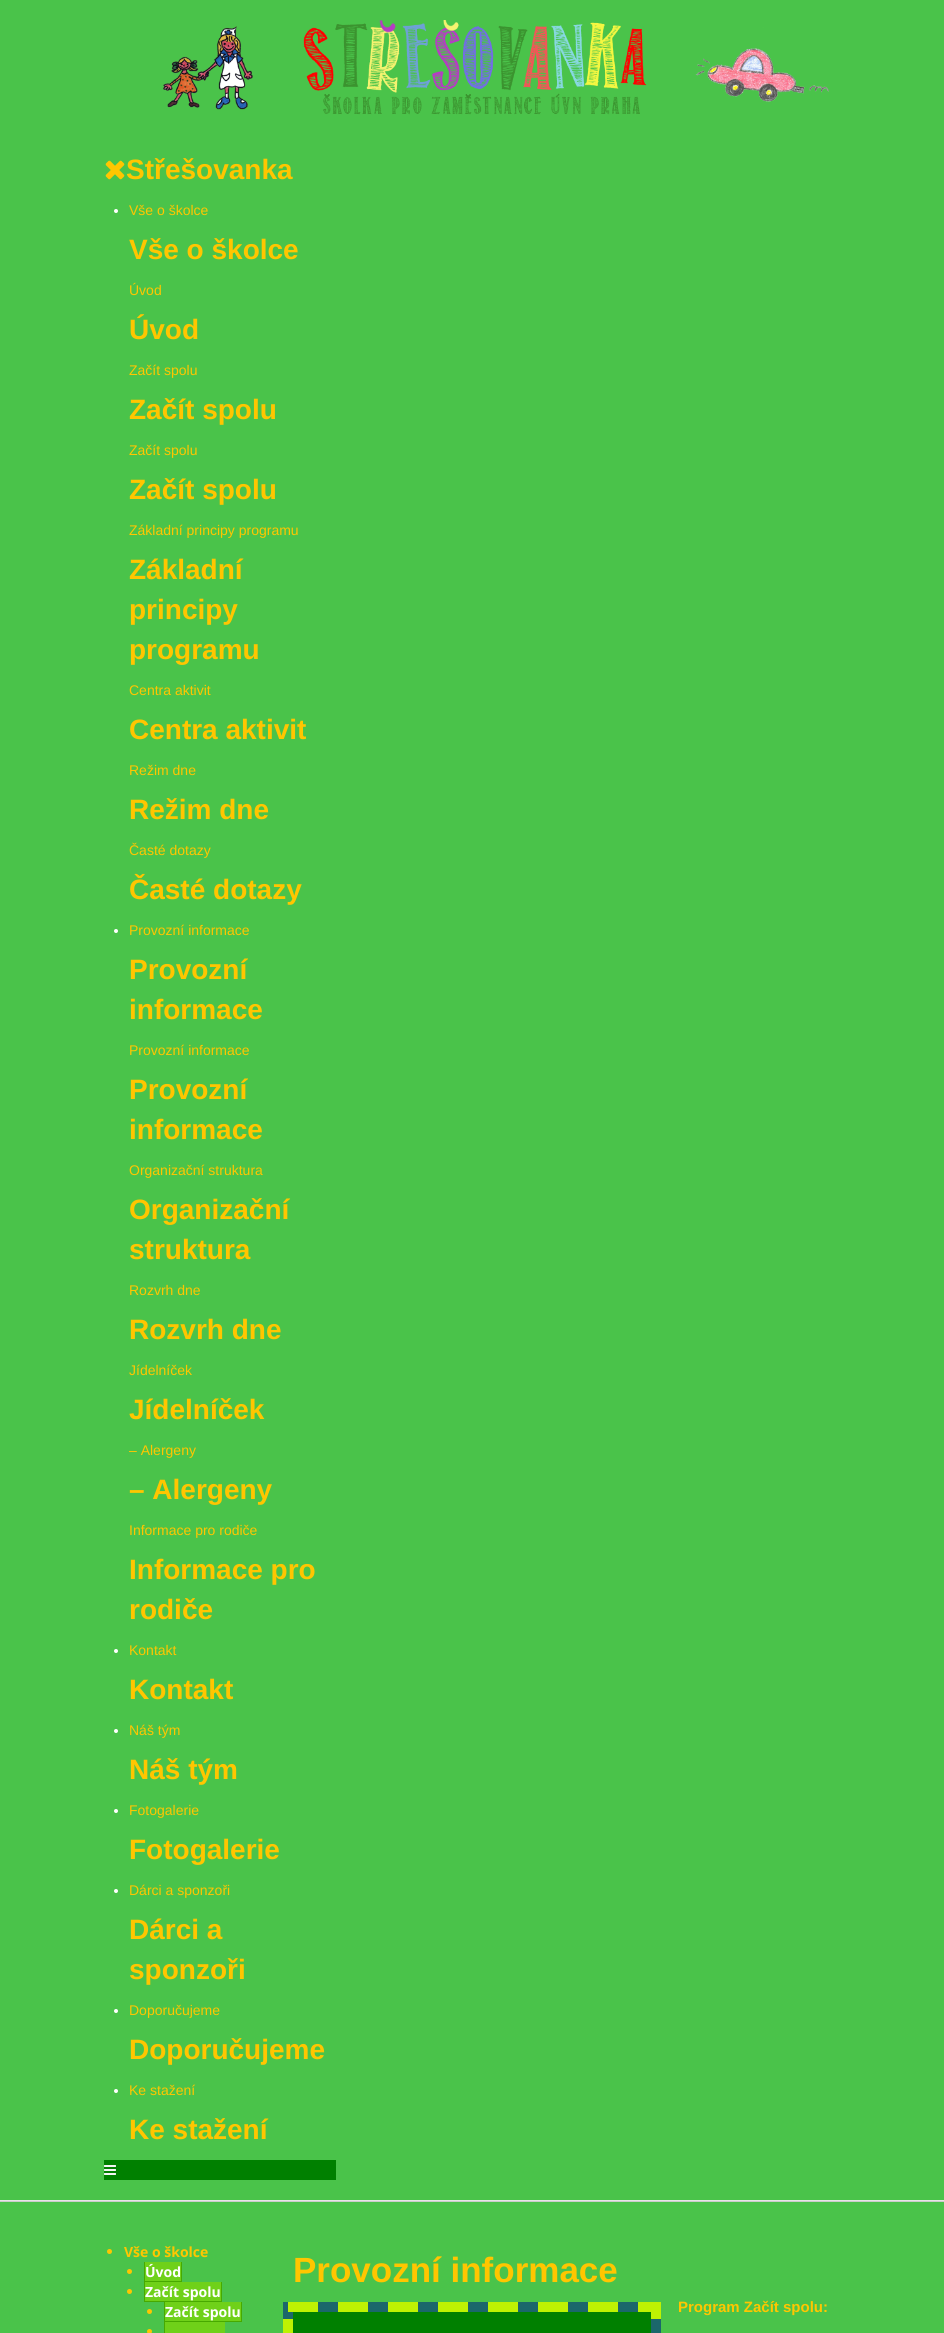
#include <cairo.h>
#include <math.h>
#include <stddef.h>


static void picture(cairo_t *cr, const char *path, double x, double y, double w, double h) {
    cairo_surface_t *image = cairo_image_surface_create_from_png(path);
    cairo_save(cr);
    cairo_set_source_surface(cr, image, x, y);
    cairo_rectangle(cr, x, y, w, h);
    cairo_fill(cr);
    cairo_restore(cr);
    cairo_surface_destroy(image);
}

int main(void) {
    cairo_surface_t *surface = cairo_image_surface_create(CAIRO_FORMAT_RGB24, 944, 2333);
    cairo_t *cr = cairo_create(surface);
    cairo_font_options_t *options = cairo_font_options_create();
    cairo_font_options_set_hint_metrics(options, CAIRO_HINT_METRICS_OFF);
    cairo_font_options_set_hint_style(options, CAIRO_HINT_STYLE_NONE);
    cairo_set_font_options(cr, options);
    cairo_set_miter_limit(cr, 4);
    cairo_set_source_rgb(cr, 0.29, 0.765, 0.29);
    cairo_paint(cr);
    picture(cr, "img1.png", 163, 20, 666, 95);
    picture(cr, "img2.png", 105, 160, 20, 20);
    cairo_select_font_face(cr, "Liberation Sans", CAIRO_FONT_SLANT_NORMAL, CAIRO_FONT_WEIGHT_BOLD);
    cairo_set_font_size(cr, 28);
    cairo_set_source_rgb(cr, 1, 0.776, 0);
    cairo_move_to(cr, 126, 179);
    cairo_show_text(cr, "Střešovanka");
    cairo_set_source_rgb(cr, 1, 1, 1);
    cairo_new_path(cr);
    cairo_arc(cr, 116, 211, 2, 0, 2 * M_PI);
    cairo_fill(cr);
    cairo_select_font_face(cr, "Liberation Sans", CAIRO_FONT_SLANT_NORMAL, CAIRO_FONT_WEIGHT_NORMAL);
    cairo_set_font_size(cr, 14);
    cairo_set_source_rgb(cr, 1, 0.776, 0);
    cairo_move_to(cr, 129, 215);
    cairo_show_text(cr, "Vše o školce");
    cairo_select_font_face(cr, "Liberation Sans", CAIRO_FONT_SLANT_NORMAL, CAIRO_FONT_WEIGHT_BOLD);
    cairo_set_font_size(cr, 28);
    cairo_move_to(cr, 129, 259);
    cairo_show_text(cr, "Vše o školce");
    cairo_select_font_face(cr, "Liberation Sans", CAIRO_FONT_SLANT_NORMAL, CAIRO_FONT_WEIGHT_NORMAL);
    cairo_set_font_size(cr, 14);
    cairo_move_to(cr, 129, 295);
    cairo_show_text(cr, "Úvod");
    cairo_select_font_face(cr, "Liberation Sans", CAIRO_FONT_SLANT_NORMAL, CAIRO_FONT_WEIGHT_BOLD);
    cairo_set_font_size(cr, 28);
    cairo_move_to(cr, 129, 339);
    cairo_show_text(cr, "Úvod");
    cairo_select_font_face(cr, "Liberation Sans", CAIRO_FONT_SLANT_NORMAL, CAIRO_FONT_WEIGHT_NORMAL);
    cairo_set_font_size(cr, 14);
    cairo_move_to(cr, 129, 375);
    cairo_show_text(cr, "Začít spolu");
    cairo_select_font_face(cr, "Liberation Sans", CAIRO_FONT_SLANT_NORMAL, CAIRO_FONT_WEIGHT_BOLD);
    cairo_set_font_size(cr, 28);
    cairo_move_to(cr, 129, 419);
    cairo_show_text(cr, "Začít spolu");
    cairo_select_font_face(cr, "Liberation Sans", CAIRO_FONT_SLANT_NORMAL, CAIRO_FONT_WEIGHT_NORMAL);
    cairo_set_font_size(cr, 14);
    cairo_move_to(cr, 129, 455);
    cairo_show_text(cr, "Začít spolu");
    cairo_select_font_face(cr, "Liberation Sans", CAIRO_FONT_SLANT_NORMAL, CAIRO_FONT_WEIGHT_BOLD);
    cairo_set_font_size(cr, 28);
    cairo_move_to(cr, 129, 499);
    cairo_show_text(cr, "Začít spolu");
    cairo_select_font_face(cr, "Liberation Sans", CAIRO_FONT_SLANT_NORMAL, CAIRO_FONT_WEIGHT_NORMAL);
    cairo_set_font_size(cr, 14);
    cairo_move_to(cr, 129, 535);
    cairo_show_text(cr, "Základní principy programu");
    cairo_select_font_face(cr, "Liberation Sans", CAIRO_FONT_SLANT_NORMAL, CAIRO_FONT_WEIGHT_BOLD);
    cairo_set_font_size(cr, 28);
    cairo_move_to(cr, 129, 579);
    cairo_show_text(cr, "Základní");
    cairo_move_to(cr, 129, 619);
    cairo_show_text(cr, "principy");
    cairo_move_to(cr, 129, 659);
    cairo_show_text(cr, "programu");
    cairo_select_font_face(cr, "Liberation Sans", CAIRO_FONT_SLANT_NORMAL, CAIRO_FONT_WEIGHT_NORMAL);
    cairo_set_font_size(cr, 14);
    cairo_move_to(cr, 129, 695);
    cairo_show_text(cr, "Centra aktivit");
    cairo_select_font_face(cr, "Liberation Sans", CAIRO_FONT_SLANT_NORMAL, CAIRO_FONT_WEIGHT_BOLD);
    cairo_set_font_size(cr, 28);
    cairo_move_to(cr, 129, 739);
    cairo_show_text(cr, "Centra aktivit");
    cairo_select_font_face(cr, "Liberation Sans", CAIRO_FONT_SLANT_NORMAL, CAIRO_FONT_WEIGHT_NORMAL);
    cairo_set_font_size(cr, 14);
    cairo_move_to(cr, 129, 775);
    cairo_show_text(cr, "Režim dne");
    cairo_select_font_face(cr, "Liberation Sans", CAIRO_FONT_SLANT_NORMAL, CAIRO_FONT_WEIGHT_BOLD);
    cairo_set_font_size(cr, 28);
    cairo_move_to(cr, 129, 819);
    cairo_show_text(cr, "Režim dne");
    cairo_select_font_face(cr, "Liberation Sans", CAIRO_FONT_SLANT_NORMAL, CAIRO_FONT_WEIGHT_NORMAL);
    cairo_set_font_size(cr, 14);
    cairo_move_to(cr, 129, 855);
    cairo_show_text(cr, "Časté dotazy");
    cairo_select_font_face(cr, "Liberation Sans", CAIRO_FONT_SLANT_NORMAL, CAIRO_FONT_WEIGHT_BOLD);
    cairo_set_font_size(cr, 28);
    cairo_move_to(cr, 129, 899);
    cairo_show_text(cr, "Časté dotazy");
    cairo_set_source_rgb(cr, 1, 1, 1);
    cairo_new_path(cr);
    cairo_arc(cr, 116, 931, 2, 0, 2 * M_PI);
    cairo_fill(cr);
    cairo_select_font_face(cr, "Liberation Sans", CAIRO_FONT_SLANT_NORMAL, CAIRO_FONT_WEIGHT_NORMAL);
    cairo_set_font_size(cr, 14);
    cairo_set_source_rgb(cr, 1, 0.776, 0);
    cairo_move_to(cr, 129, 935);
    cairo_show_text(cr, "Provozní informace");
    cairo_select_font_face(cr, "Liberation Sans", CAIRO_FONT_SLANT_NORMAL, CAIRO_FONT_WEIGHT_BOLD);
    cairo_set_font_size(cr, 28);
    cairo_move_to(cr, 129, 979);
    cairo_show_text(cr, "Provozní");
    cairo_move_to(cr, 129, 1019);
    cairo_show_text(cr, "informace");
    cairo_select_font_face(cr, "Liberation Sans", CAIRO_FONT_SLANT_NORMAL, CAIRO_FONT_WEIGHT_NORMAL);
    cairo_set_font_size(cr, 14);
    cairo_move_to(cr, 129, 1055);
    cairo_show_text(cr, "Provozní informace");
    cairo_select_font_face(cr, "Liberation Sans", CAIRO_FONT_SLANT_NORMAL, CAIRO_FONT_WEIGHT_BOLD);
    cairo_set_font_size(cr, 28);
    cairo_move_to(cr, 129, 1099);
    cairo_show_text(cr, "Provozní");
    cairo_move_to(cr, 129, 1139);
    cairo_show_text(cr, "informace");
    cairo_select_font_face(cr, "Liberation Sans", CAIRO_FONT_SLANT_NORMAL, CAIRO_FONT_WEIGHT_NORMAL);
    cairo_set_font_size(cr, 14);
    cairo_move_to(cr, 129, 1175);
    cairo_show_text(cr, "Organizační struktura");
    cairo_select_font_face(cr, "Liberation Sans", CAIRO_FONT_SLANT_NORMAL, CAIRO_FONT_WEIGHT_BOLD);
    cairo_set_font_size(cr, 28);
    cairo_move_to(cr, 129, 1219);
    cairo_show_text(cr, "Organizační");
    cairo_move_to(cr, 129, 1259);
    cairo_show_text(cr, "struktura");
    cairo_select_font_face(cr, "Liberation Sans", CAIRO_FONT_SLANT_NORMAL, CAIRO_FONT_WEIGHT_NORMAL);
    cairo_set_font_size(cr, 14);
    cairo_move_to(cr, 129, 1295);
    cairo_show_text(cr, "Rozvrh dne");
    cairo_select_font_face(cr, "Liberation Sans", CAIRO_FONT_SLANT_NORMAL, CAIRO_FONT_WEIGHT_BOLD);
    cairo_set_font_size(cr, 28);
    cairo_move_to(cr, 129, 1339);
    cairo_show_text(cr, "Rozvrh dne");
    cairo_select_font_face(cr, "Liberation Sans", CAIRO_FONT_SLANT_NORMAL, CAIRO_FONT_WEIGHT_NORMAL);
    cairo_set_font_size(cr, 14);
    cairo_move_to(cr, 129, 1375);
    cairo_show_text(cr, "Jídelníček");
    cairo_select_font_face(cr, "Liberation Sans", CAIRO_FONT_SLANT_NORMAL, CAIRO_FONT_WEIGHT_BOLD);
    cairo_set_font_size(cr, 28);
    cairo_move_to(cr, 129, 1419);
    cairo_show_text(cr, "Jídelníček");
    cairo_select_font_face(cr, "Liberation Sans", CAIRO_FONT_SLANT_NORMAL, CAIRO_FONT_WEIGHT_NORMAL);
    cairo_set_font_size(cr, 14);
    cairo_move_to(cr, 129, 1455);
    cairo_show_text(cr, "– Alergeny");
    cairo_select_font_face(cr, "Liberation Sans", CAIRO_FONT_SLANT_NORMAL, CAIRO_FONT_WEIGHT_BOLD);
    cairo_set_font_size(cr, 28);
    cairo_move_to(cr, 129, 1499);
    cairo_show_text(cr, "– Alergeny");
    cairo_select_font_face(cr, "Liberation Sans", CAIRO_FONT_SLANT_NORMAL, CAIRO_FONT_WEIGHT_NORMAL);
    cairo_set_font_size(cr, 14);
    cairo_move_to(cr, 129, 1535);
    cairo_show_text(cr, "Informace pro rodiče");
    cairo_select_font_face(cr, "Liberation Sans", CAIRO_FONT_SLANT_NORMAL, CAIRO_FONT_WEIGHT_BOLD);
    cairo_set_font_size(cr, 28);
    cairo_move_to(cr, 129, 1579);
    cairo_show_text(cr, "Informace pro");
    cairo_move_to(cr, 129, 1619);
    cairo_show_text(cr, "rodiče");
    cairo_set_source_rgb(cr, 1, 1, 1);
    cairo_new_path(cr);
    cairo_arc(cr, 116, 1651, 2, 0, 2 * M_PI);
    cairo_fill(cr);
    cairo_select_font_face(cr, "Liberation Sans", CAIRO_FONT_SLANT_NORMAL, CAIRO_FONT_WEIGHT_NORMAL);
    cairo_set_font_size(cr, 14);
    cairo_set_source_rgb(cr, 1, 0.776, 0);
    cairo_move_to(cr, 129, 1655);
    cairo_show_text(cr, "Kontakt");
    cairo_select_font_face(cr, "Liberation Sans", CAIRO_FONT_SLANT_NORMAL, CAIRO_FONT_WEIGHT_BOLD);
    cairo_set_font_size(cr, 28);
    cairo_move_to(cr, 129, 1699);
    cairo_show_text(cr, "Kontakt");
    cairo_set_source_rgb(cr, 1, 1, 1);
    cairo_new_path(cr);
    cairo_arc(cr, 116, 1731, 2, 0, 2 * M_PI);
    cairo_fill(cr);
    cairo_select_font_face(cr, "Liberation Sans", CAIRO_FONT_SLANT_NORMAL, CAIRO_FONT_WEIGHT_NORMAL);
    cairo_set_font_size(cr, 14);
    cairo_set_source_rgb(cr, 1, 0.776, 0);
    cairo_move_to(cr, 129, 1735);
    cairo_show_text(cr, "Náš tým");
    cairo_select_font_face(cr, "Liberation Sans", CAIRO_FONT_SLANT_NORMAL, CAIRO_FONT_WEIGHT_BOLD);
    cairo_set_font_size(cr, 28);
    cairo_move_to(cr, 129, 1779);
    cairo_show_text(cr, "Náš tým");
    cairo_set_source_rgb(cr, 1, 1, 1);
    cairo_new_path(cr);
    cairo_arc(cr, 116, 1811, 2, 0, 2 * M_PI);
    cairo_fill(cr);
    cairo_select_font_face(cr, "Liberation Sans", CAIRO_FONT_SLANT_NORMAL, CAIRO_FONT_WEIGHT_NORMAL);
    cairo_set_font_size(cr, 14);
    cairo_set_source_rgb(cr, 1, 0.776, 0);
    cairo_move_to(cr, 129, 1815);
    cairo_show_text(cr, "Fotogalerie");
    cairo_select_font_face(cr, "Liberation Sans", CAIRO_FONT_SLANT_NORMAL, CAIRO_FONT_WEIGHT_BOLD);
    cairo_set_font_size(cr, 28);
    cairo_move_to(cr, 129, 1859);
    cairo_show_text(cr, "Fotogalerie");
    cairo_set_source_rgb(cr, 1, 1, 1);
    cairo_new_path(cr);
    cairo_arc(cr, 116, 1891, 2, 0, 2 * M_PI);
    cairo_fill(cr);
    cairo_select_font_face(cr, "Liberation Sans", CAIRO_FONT_SLANT_NORMAL, CAIRO_FONT_WEIGHT_NORMAL);
    cairo_set_font_size(cr, 14);
    cairo_set_source_rgb(cr, 1, 0.776, 0);
    cairo_move_to(cr, 129, 1895);
    cairo_show_text(cr, "Dárci a sponzoři");
    cairo_select_font_face(cr, "Liberation Sans", CAIRO_FONT_SLANT_NORMAL, CAIRO_FONT_WEIGHT_BOLD);
    cairo_set_font_size(cr, 28);
    cairo_move_to(cr, 129, 1939);
    cairo_show_text(cr, "Dárci a");
    cairo_move_to(cr, 129, 1979);
    cairo_show_text(cr, "sponzoři");
    cairo_set_source_rgb(cr, 1, 1, 1);
    cairo_new_path(cr);
    cairo_arc(cr, 116, 2011, 2, 0, 2 * M_PI);
    cairo_fill(cr);
    cairo_select_font_face(cr, "Liberation Sans", CAIRO_FONT_SLANT_NORMAL, CAIRO_FONT_WEIGHT_NORMAL);
    cairo_set_font_size(cr, 14);
    cairo_set_source_rgb(cr, 1, 0.776, 0);
    cairo_move_to(cr, 129, 2015);
    cairo_show_text(cr, "Doporučujeme");
    cairo_select_font_face(cr, "Liberation Sans", CAIRO_FONT_SLANT_NORMAL, CAIRO_FONT_WEIGHT_BOLD);
    cairo_set_font_size(cr, 28);
    cairo_move_to(cr, 129, 2059);
    cairo_show_text(cr, "Doporučujeme");
    cairo_set_source_rgb(cr, 1, 1, 1);
    cairo_new_path(cr);
    cairo_arc(cr, 116, 2091, 2, 0, 2 * M_PI);
    cairo_fill(cr);
    cairo_select_font_face(cr, "Liberation Sans", CAIRO_FONT_SLANT_NORMAL, CAIRO_FONT_WEIGHT_NORMAL);
    cairo_set_font_size(cr, 14);
    cairo_set_source_rgb(cr, 1, 0.776, 0);
    cairo_move_to(cr, 129, 2095);
    cairo_show_text(cr, "Ke stažení");
    cairo_select_font_face(cr, "Liberation Sans", CAIRO_FONT_SLANT_NORMAL, CAIRO_FONT_WEIGHT_BOLD);
    cairo_set_font_size(cr, 28);
    cairo_move_to(cr, 129, 2139);
    cairo_show_text(cr, "Ke stažení");
    cairo_set_source_rgb(cr, 0, 0.502, 0);
    cairo_rectangle(cr, 104, 2160, 232, 20);
    cairo_fill(cr);
    picture(cr, "img3.png", 104, 2165, 12, 10);
    cairo_set_source_rgb(cr, 0.902, 0.902, 0.902);
    cairo_rectangle(cr, 0, 2200, 944, 1);
    cairo_fill(cr);
    cairo_set_source_rgb(cr, 0.8, 0.8, 0.8);
    cairo_rectangle(cr, 0, 2201, 944, 1);
    cairo_fill(cr);
    cairo_set_source_rgb(cr, 1, 0.776, 0);
    cairo_arc(cr, 109.5, 2251.5, 2.5, 0, 2 * M_PI);
    cairo_fill(cr);
    cairo_select_font_face(cr, "Open Sans", CAIRO_FONT_SLANT_NORMAL, CAIRO_FONT_WEIGHT_BOLD);
    cairo_set_font_size(cr, 14);
    cairo_move_to(cr, 124, 2257);
    cairo_show_text(cr, "Vše o školce");
    cairo_new_path(cr);
    cairo_arc(cr, 129.5, 2271.5, 2.5, 0, 2 * M_PI);
    cairo_fill(cr);
    cairo_set_source_rgb(cr, 0.435, 0.82, 0.098);
    cairo_rectangle(cr, 145, 2262, 36, 19);
    cairo_fill(cr);
    cairo_set_source_rgb(cr, 1, 1, 1);
    cairo_move_to(cr, 145, 2277);
    cairo_show_text(cr, "Úvod");
    cairo_set_source_rgb(cr, 0.278, 0.663, 0);
    cairo_rectangle(cr, 181, 2262, 1, 20);
    cairo_fill(cr);
    cairo_rectangle(cr, 144, 2281, 38, 1);
    cairo_fill(cr);
    cairo_rectangle(cr, 144, 2262, 1, 20);
    cairo_fill(cr);
    cairo_set_source_rgb(cr, 1, 0.776, 0);
    cairo_arc(cr, 129.5, 2291.5, 2.5, 0, 2 * M_PI);
    cairo_fill(cr);
    cairo_set_source_rgb(cr, 0.435, 0.82, 0.098);
    cairo_rectangle(cr, 145, 2282, 76, 19);
    cairo_fill(cr);
    cairo_set_source_rgb(cr, 1, 1, 1);
    cairo_move_to(cr, 145, 2297);
    cairo_show_text(cr, "Začít spolu");
    cairo_set_source_rgb(cr, 0.278, 0.663, 0);
    cairo_rectangle(cr, 221, 2282, 1, 20);
    cairo_fill(cr);
    cairo_rectangle(cr, 144, 2301, 78, 1);
    cairo_fill(cr);
    cairo_rectangle(cr, 144, 2282, 1, 20);
    cairo_fill(cr);
    cairo_set_source_rgb(cr, 1, 0.776, 0);
    cairo_arc(cr, 149.5, 2311.5, 2.5, 0, 2 * M_PI);
    cairo_fill(cr);
    cairo_set_source_rgb(cr, 0.435, 0.82, 0.098);
    cairo_rectangle(cr, 165, 2302, 76, 19);
    cairo_fill(cr);
    cairo_set_source_rgb(cr, 1, 1, 1);
    cairo_move_to(cr, 165, 2317);
    cairo_show_text(cr, "Začít spolu");
    cairo_set_source_rgb(cr, 0.278, 0.663, 0);
    cairo_rectangle(cr, 241, 2302, 1, 20);
    cairo_fill(cr);
    cairo_rectangle(cr, 164, 2321, 78, 1);
    cairo_fill(cr);
    cairo_rectangle(cr, 164, 2302, 1, 31);
    cairo_fill(cr);
    cairo_set_source_rgb(cr, 1, 0.776, 0);
    cairo_arc(cr, 149.5, 2331.5, 2.5, 0, 2 * M_PI);
    cairo_fill(cr);
    cairo_set_source_rgb(cr, 0.435, 0.82, 0.098);
    cairo_rectangle(cr, 165, 2322, 60, 11);
    cairo_fill(cr);
    cairo_select_font_face(cr, "Liberation Sans", CAIRO_FONT_SLANT_NORMAL, CAIRO_FONT_WEIGHT_BOLD);
    cairo_set_font_size(cr, 35);
    cairo_set_source_rgb(cr, 1, 0.776, 0);
    cairo_move_to(cr, 293, 2282);
    cairo_show_text(cr, "Provozní informace");
    cairo_rectangle(cr, 288, 2307, 368, 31);
    cairo_set_source_rgb(cr, 0.106, 0.404, 0.42);
    cairo_set_line_width(cr, 10);
    cairo_stroke(cr);
    cairo_set_source_rgb(cr, 0, 0.502, 0);
    cairo_rectangle(cr, 293, 2312, 358, 21);
    cairo_fill(cr);
    cairo_new_path(cr);
    cairo_move_to(cr, 288, 2307);
    cairo_line_to(cr, 656, 2307);
    cairo_line_to(cr, 656, 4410);
    cairo_line_to(cr, 288, 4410);
    cairo_close_path(cr);
    cairo_set_source_rgb(cr, 0.745, 0.949, 0.008);
    cairo_set_dash(cr, (double[]){30, 20}, 2, 0);
    cairo_stroke(cr);
    cairo_set_font_size(cr, 15);
    cairo_set_source_rgb(cr, 1, 0.776, 0);
    cairo_move_to(cr, 678, 2312);
    cairo_show_text(cr, "Program Začít spolu:");
    cairo_surface_write_to_png(surface, "page.png");
    cairo_font_options_destroy(options);
    cairo_destroy(cr);
    cairo_surface_destroy(surface);
    return 0;
}
